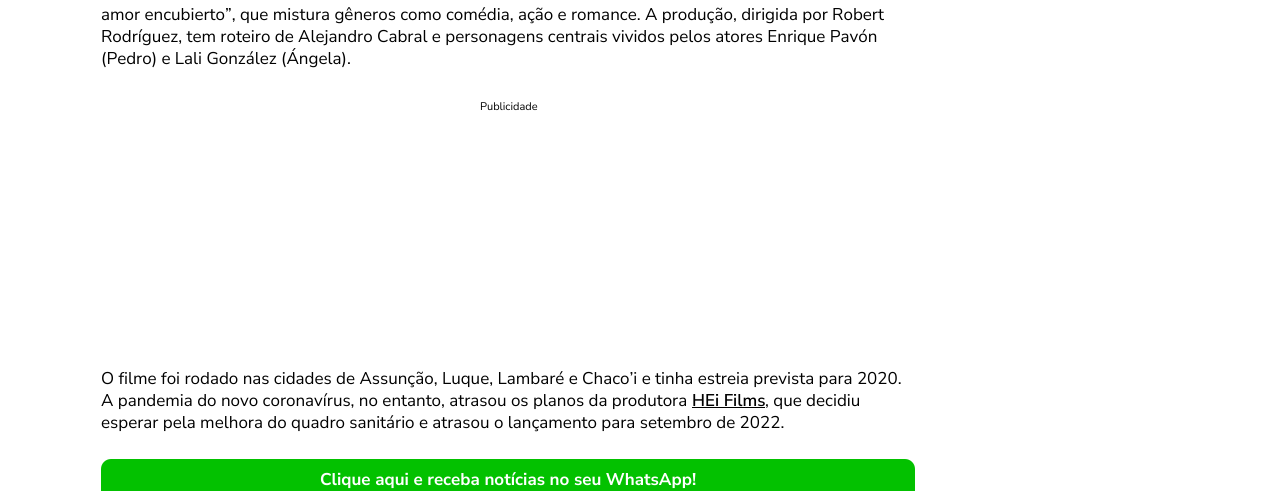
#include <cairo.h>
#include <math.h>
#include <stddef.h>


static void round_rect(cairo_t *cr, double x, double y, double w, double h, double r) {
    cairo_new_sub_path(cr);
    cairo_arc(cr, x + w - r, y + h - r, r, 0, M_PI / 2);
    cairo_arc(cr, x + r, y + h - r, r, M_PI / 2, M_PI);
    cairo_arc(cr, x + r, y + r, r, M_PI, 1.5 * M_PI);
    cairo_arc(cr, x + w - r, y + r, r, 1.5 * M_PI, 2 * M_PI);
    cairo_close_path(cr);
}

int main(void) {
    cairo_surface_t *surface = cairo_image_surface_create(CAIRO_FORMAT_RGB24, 1271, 491);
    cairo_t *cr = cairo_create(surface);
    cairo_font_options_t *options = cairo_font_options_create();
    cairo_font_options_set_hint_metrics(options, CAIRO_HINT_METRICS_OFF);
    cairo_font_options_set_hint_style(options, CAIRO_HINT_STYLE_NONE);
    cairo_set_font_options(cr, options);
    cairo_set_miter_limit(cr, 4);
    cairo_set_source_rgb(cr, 1, 1, 1);
    cairo_paint(cr);
    cairo_select_font_face(cr, "Nunito Sans", CAIRO_FONT_SLANT_NORMAL, CAIRO_FONT_WEIGHT_NORMAL);
    cairo_set_font_size(cr, 17);
    cairo_set_source_rgb(cr, 0, 0, 0);
    cairo_move_to(cr, 101, 20);
    cairo_show_text(cr, "amor encubierto”, que mistura gêneros como comédia, ação e romance. A produção, dirigida por Robert");
    cairo_move_to(cr, 101, 42);
    cairo_show_text(cr, "Rodríguez, tem roteiro de Alejandro Cabral e personagens centrais vividos pelos atores Enrique Pavón");
    cairo_move_to(cr, 101, 64);
    cairo_show_text(cr, "(Pedro) e Lali González (Ángela).");
    cairo_set_font_size(cr, 11);
    cairo_move_to(cr, 480, 110);
    cairo_show_text(cr, "Publicidade");
    cairo_set_font_size(cr, 17);
    cairo_move_to(cr, 101, 384);
    cairo_show_text(cr, "O filme foi rodado nas cidades de Assunção, Luque, Lambaré e Chaco’i e tinha estreia prevista para 2020.");
    cairo_move_to(cr, 101, 406);
    cairo_show_text(cr, "A pandemia do novo coronavírus, no entanto, atrasou os planos da produtora");
    cairo_select_font_face(cr, "Nunito Sans SemiBold", CAIRO_FONT_SLANT_NORMAL, CAIRO_FONT_WEIGHT_NORMAL);
    cairo_move_to(cr, 692, 406);
    cairo_show_text(cr, "HEi Films");
    cairo_rectangle(cr, 692, 407, 73, 1);
    cairo_fill(cr);
    cairo_select_font_face(cr, "Nunito Sans", CAIRO_FONT_SLANT_NORMAL, CAIRO_FONT_WEIGHT_NORMAL);
    cairo_move_to(cr, 765, 406);
    cairo_show_text(cr, ", que decidiu");
    cairo_move_to(cr, 101, 428);
    cairo_show_text(cr, "esperar pela melhora do quadro sanitário e atrasou o lançamento para setembro de 2022.");
    cairo_set_source_rgb(cr, 0.012, 0.757, 0);
    round_rect(cr, 101, 459, 814, 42, 10);
    cairo_fill(cr);
    cairo_select_font_face(cr, "Nunito Sans", CAIRO_FONT_SLANT_NORMAL, CAIRO_FONT_WEIGHT_BOLD);
    cairo_set_source_rgb(cr, 1, 1, 1);
    cairo_move_to(cr, 320, 485);
    cairo_show_text(cr, "Clique aqui e receba notícias no seu WhatsApp!");
    cairo_surface_write_to_png(surface, "page.png");
    cairo_font_options_destroy(options);
    cairo_destroy(cr);
    cairo_surface_destroy(surface);
    return 0;
}
